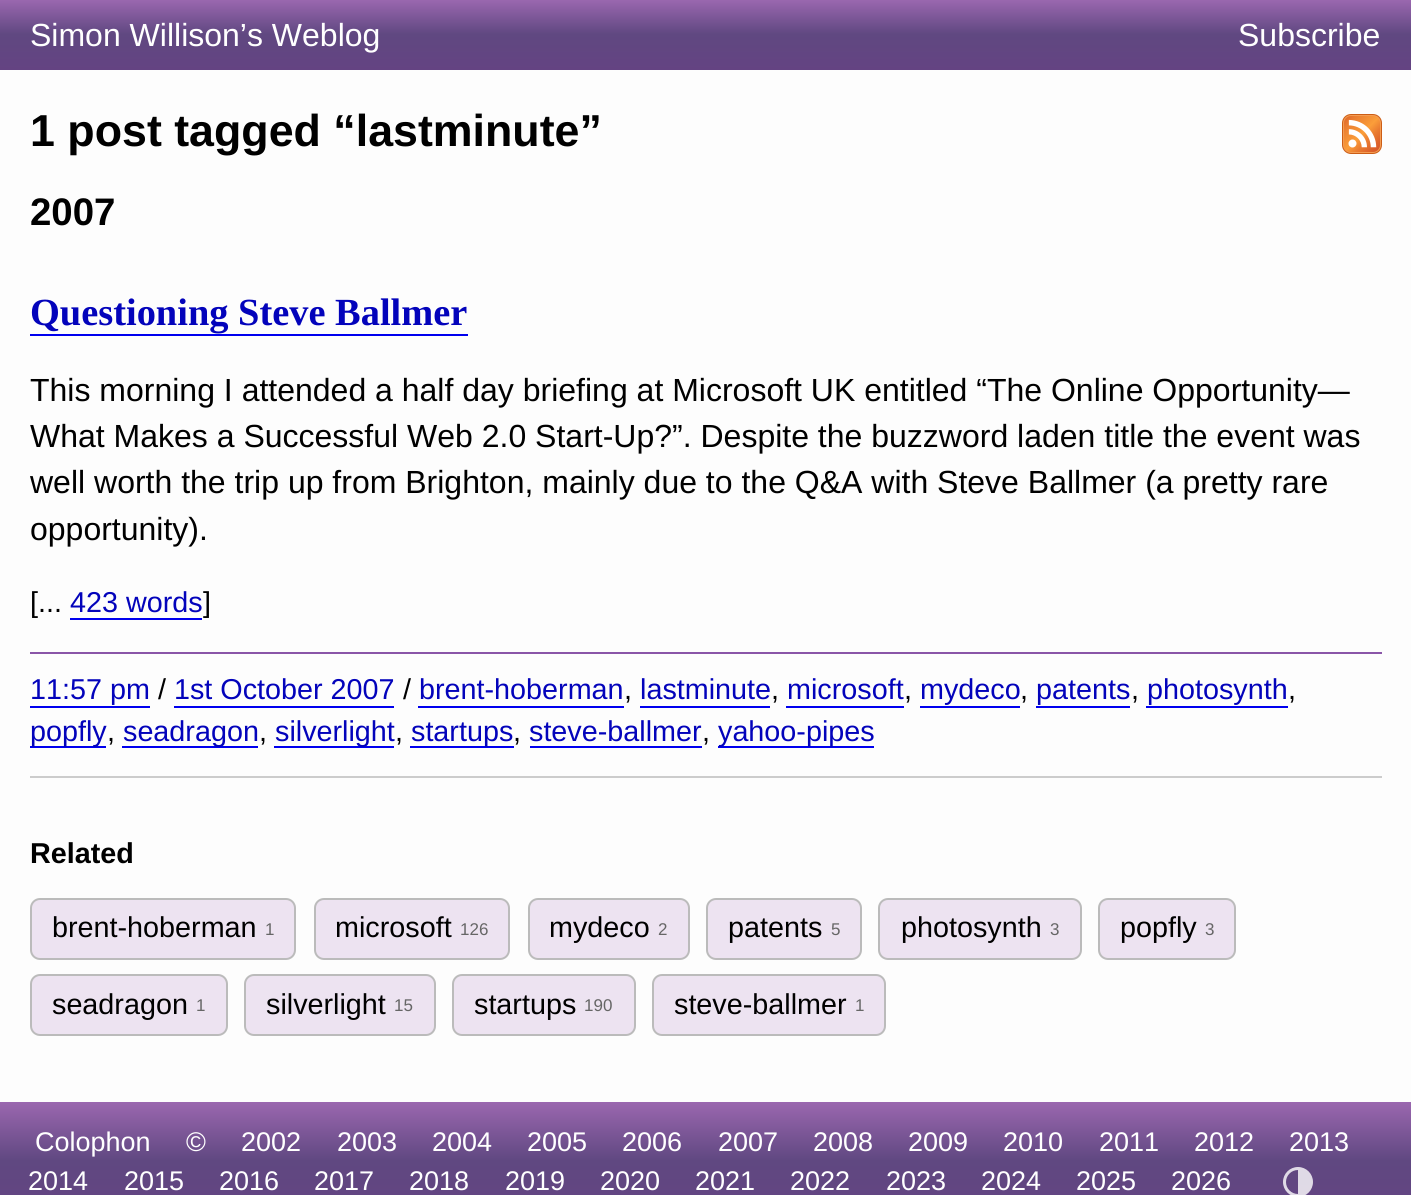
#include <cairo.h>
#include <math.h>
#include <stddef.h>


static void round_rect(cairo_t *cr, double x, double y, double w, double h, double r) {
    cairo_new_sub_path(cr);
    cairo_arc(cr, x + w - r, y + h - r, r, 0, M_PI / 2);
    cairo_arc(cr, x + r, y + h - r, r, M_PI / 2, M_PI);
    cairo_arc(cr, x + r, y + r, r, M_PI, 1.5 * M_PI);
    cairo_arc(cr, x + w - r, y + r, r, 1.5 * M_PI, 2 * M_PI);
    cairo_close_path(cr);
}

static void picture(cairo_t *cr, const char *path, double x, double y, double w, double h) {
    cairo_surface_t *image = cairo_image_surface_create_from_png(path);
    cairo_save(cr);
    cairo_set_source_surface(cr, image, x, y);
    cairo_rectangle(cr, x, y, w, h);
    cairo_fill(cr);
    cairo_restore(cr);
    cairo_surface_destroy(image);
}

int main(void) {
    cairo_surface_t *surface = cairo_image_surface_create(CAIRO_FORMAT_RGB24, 1411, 1195);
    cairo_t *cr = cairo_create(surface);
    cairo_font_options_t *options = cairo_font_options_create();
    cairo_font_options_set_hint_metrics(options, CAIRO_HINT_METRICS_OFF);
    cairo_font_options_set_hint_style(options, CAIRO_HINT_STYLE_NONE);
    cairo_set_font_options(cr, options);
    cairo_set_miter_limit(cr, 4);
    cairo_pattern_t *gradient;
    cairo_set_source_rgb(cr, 0.992, 0.992, 0.992);
    cairo_paint(cr);
    gradient = cairo_pattern_create_linear(706, 0, 706, 70);
    cairo_pattern_add_color_stop_rgba(gradient, 0, 0.604, 0.404, 0.686, 1);
    cairo_pattern_add_color_stop_rgba(gradient, 0.49, 0.376, 0.282, 0.506, 1);
    cairo_pattern_add_color_stop_rgba(gradient, 1, 0.392, 0.263, 0.51, 1);
    cairo_set_source(cr, gradient);
    cairo_pattern_destroy(gradient);
    cairo_rectangle(cr, 0, 0, 1411, 70);
    cairo_fill(cr);
    cairo_select_font_face(cr, "Liberation Sans", CAIRO_FONT_SLANT_NORMAL, CAIRO_FONT_WEIGHT_NORMAL);
    cairo_set_font_size(cr, 32);
    cairo_set_source_rgb(cr, 1, 1, 1);
    cairo_move_to(cr, 30, 46);
    cairo_show_text(cr, "Simon Willison’s Weblog");
    cairo_move_to(cr, 1238, 46);
    cairo_show_text(cr, "Subscribe");
    cairo_select_font_face(cr, "Liberation Sans", CAIRO_FONT_SLANT_NORMAL, CAIRO_FONT_WEIGHT_BOLD);
    cairo_set_font_size(cr, 44.75);
    cairo_set_source_rgb(cr, 0, 0, 0);
    cairo_move_to(cr, 30, 146);
    cairo_show_text(cr, "1 post tagged “lastminute”");
    picture(cr, "img1.png", 1342, 114, 40, 40);
    cairo_set_font_size(cr, 38.4);
    cairo_move_to(cr, 30, 225);
    cairo_show_text(cr, "2007");
    cairo_set_source_rgb(cr, 0.8, 0.8, 0.8);
    cairo_rectangle(cr, 30, 776, 1352, 2);
    cairo_fill(cr);
    cairo_select_font_face(cr, "Liberation Serif", CAIRO_FONT_SLANT_NORMAL, CAIRO_FONT_WEIGHT_BOLD);
    cairo_set_source_rgb(cr, 0.012, 0.012, 0.733);
    cairo_move_to(cr, 30, 325);
    cairo_show_text(cr, "Questioning Steve Ballmer");
    cairo_set_source_rgb(cr, 0, 0, 0.933);
    cairo_rectangle(cr, 30, 334, 438, 2);
    cairo_fill(cr);
    cairo_select_font_face(cr, "Liberation Sans", CAIRO_FONT_SLANT_NORMAL, CAIRO_FONT_WEIGHT_NORMAL);
    cairo_set_font_size(cr, 32);
    cairo_set_source_rgb(cr, 0, 0, 0);
    cairo_move_to(cr, 30, 401);
    cairo_show_text(cr, "This morning I attended a half day briefing at Microsoft UK entitled “The Online Opportunity—");
    cairo_move_to(cr, 30, 447);
    cairo_show_text(cr, "What Makes a Successful Web 2.0 Start-Up?”. Despite the buzzword laden title the event was");
    cairo_move_to(cr, 30, 493);
    cairo_show_text(cr, "well worth the trip up from Brighton, mainly due to the Q&A with Steve Ballmer (a pretty rare");
    cairo_move_to(cr, 30, 540);
    cairo_show_text(cr, "opportunity).");
    cairo_set_font_size(cr, 28.75);
    cairo_move_to(cr, 30, 612);
    cairo_show_text(cr, "[...");
    cairo_set_source_rgb(cr, 0.012, 0.012, 0.733);
    cairo_move_to(cr, 70, 612);
    cairo_show_text(cr, "423 words");
    cairo_set_source_rgb(cr, 0, 0, 0);
    cairo_move_to(cr, 203, 612);
    cairo_show_text(cr, "]");
    cairo_set_source_rgb(cr, 0, 0, 0.933);
    cairo_rectangle(cr, 70, 618, 132, 2);
    cairo_fill(cr);
    cairo_set_source_rgb(cr, 0.541, 0.333, 0.659);
    cairo_rectangle(cr, 30, 652, 1352, 2);
    cairo_fill(cr);
    cairo_set_source_rgb(cr, 0.012, 0.012, 0.733);
    cairo_move_to(cr, 30, 699);
    cairo_show_text(cr, "11:57 pm");
    cairo_set_source_rgb(cr, 0, 0, 0.933);
    cairo_rectangle(cr, 30, 706, 120, 2);
    cairo_fill(cr);
    cairo_set_source_rgb(cr, 0, 0, 0);
    cairo_move_to(cr, 158, 699);
    cairo_show_text(cr, "/");
    cairo_set_source_rgb(cr, 0.012, 0.012, 0.733);
    cairo_move_to(cr, 174, 699);
    cairo_show_text(cr, "1st October 2007");
    cairo_set_source_rgb(cr, 0, 0, 0.933);
    cairo_rectangle(cr, 174, 706, 220, 2);
    cairo_fill(cr);
    cairo_set_source_rgb(cr, 0, 0, 0);
    cairo_move_to(cr, 403, 699);
    cairo_show_text(cr, "/");
    cairo_set_source_rgb(cr, 0.012, 0.012, 0.733);
    cairo_move_to(cr, 419, 699);
    cairo_show_text(cr, "brent-hoberman");
    cairo_set_source_rgb(cr, 0, 0, 0.933);
    cairo_rectangle(cr, 418, 706, 206, 2);
    cairo_fill(cr);
    cairo_set_source_rgb(cr, 0, 0, 0);
    cairo_move_to(cr, 624, 699);
    cairo_show_text(cr, ",");
    cairo_set_source_rgb(cr, 0.012, 0.012, 0.733);
    cairo_move_to(cr, 640, 699);
    cairo_show_text(cr, "lastminute");
    cairo_set_source_rgb(cr, 0, 0, 0.933);
    cairo_rectangle(cr, 640, 706, 130, 2);
    cairo_fill(cr);
    cairo_set_source_rgb(cr, 0, 0, 0);
    cairo_move_to(cr, 771, 699);
    cairo_show_text(cr, ",");
    cairo_set_source_rgb(cr, 0.012, 0.012, 0.733);
    cairo_move_to(cr, 787, 699);
    cairo_show_text(cr, "microsoft");
    cairo_set_source_rgb(cr, 0, 0, 0.933);
    cairo_rectangle(cr, 786, 706, 118, 2);
    cairo_fill(cr);
    cairo_set_source_rgb(cr, 0, 0, 0);
    cairo_move_to(cr, 904, 699);
    cairo_show_text(cr, ",");
    cairo_set_source_rgb(cr, 0.012, 0.012, 0.733);
    cairo_move_to(cr, 920, 699);
    cairo_show_text(cr, "mydeco");
    cairo_set_source_rgb(cr, 0, 0, 0.933);
    cairo_rectangle(cr, 920, 706, 100, 2);
    cairo_fill(cr);
    cairo_set_source_rgb(cr, 0, 0, 0);
    cairo_move_to(cr, 1020, 699);
    cairo_show_text(cr, ",");
    cairo_set_source_rgb(cr, 0.012, 0.012, 0.733);
    cairo_move_to(cr, 1036, 699);
    cairo_show_text(cr, "patents");
    cairo_set_source_rgb(cr, 0, 0, 0.933);
    cairo_rectangle(cr, 1036, 706, 94, 2);
    cairo_fill(cr);
    cairo_set_source_rgb(cr, 0, 0, 0);
    cairo_move_to(cr, 1131, 699);
    cairo_show_text(cr, ",");
    cairo_set_source_rgb(cr, 0.012, 0.012, 0.733);
    cairo_move_to(cr, 1147, 699);
    cairo_show_text(cr, "photosynth");
    cairo_set_source_rgb(cr, 0, 0, 0.933);
    cairo_rectangle(cr, 1146, 706, 142, 2);
    cairo_fill(cr);
    cairo_set_source_rgb(cr, 0, 0, 0);
    cairo_move_to(cr, 1288, 699);
    cairo_show_text(cr, ",");
    cairo_set_source_rgb(cr, 0, 0, 0.933);
    cairo_rectangle(cr, 30, 746, 76, 2);
    cairo_fill(cr);
    cairo_set_source_rgb(cr, 0.012, 0.012, 0.733);
    cairo_move_to(cr, 30, 741);
    cairo_show_text(cr, "popfly");
    cairo_set_source_rgb(cr, 0, 0, 0);
    cairo_move_to(cr, 107, 741);
    cairo_show_text(cr, ",");
    cairo_set_source_rgb(cr, 0, 0, 0.933);
    cairo_rectangle(cr, 122, 746, 136, 2);
    cairo_fill(cr);
    cairo_set_source_rgb(cr, 0.012, 0.012, 0.733);
    cairo_move_to(cr, 123, 741);
    cairo_show_text(cr, "seadragon");
    cairo_set_source_rgb(cr, 0, 0, 0);
    cairo_move_to(cr, 259, 741);
    cairo_show_text(cr, ",");
    cairo_set_source_rgb(cr, 0, 0, 0.933);
    cairo_rectangle(cr, 274, 746, 120, 2);
    cairo_fill(cr);
    cairo_set_source_rgb(cr, 0.012, 0.012, 0.733);
    cairo_move_to(cr, 275, 741);
    cairo_show_text(cr, "silverlight");
    cairo_set_source_rgb(cr, 0, 0, 0);
    cairo_move_to(cr, 395, 741);
    cairo_show_text(cr, ",");
    cairo_set_source_rgb(cr, 0, 0, 0.933);
    cairo_rectangle(cr, 410, 746, 104, 2);
    cairo_fill(cr);
    cairo_set_source_rgb(cr, 0.012, 0.012, 0.733);
    cairo_move_to(cr, 411, 741);
    cairo_show_text(cr, "startups");
    cairo_set_source_rgb(cr, 0, 0, 0);
    cairo_move_to(cr, 513, 741);
    cairo_show_text(cr, ",");
    cairo_set_source_rgb(cr, 0.012, 0.012, 0.733);
    cairo_move_to(cr, 529, 741);
    cairo_show_text(cr, "steve-ballmer");
    cairo_set_source_rgb(cr, 0, 0, 0.933);
    cairo_rectangle(cr, 530, 746, 172, 2);
    cairo_fill(cr);
    cairo_set_source_rgb(cr, 0, 0, 0);
    cairo_move_to(cr, 702, 741);
    cairo_show_text(cr, ",");
    cairo_set_source_rgb(cr, 0, 0, 0.933);
    cairo_rectangle(cr, 718, 746, 156, 2);
    cairo_fill(cr);
    cairo_set_source_rgb(cr, 0.012, 0.012, 0.733);
    cairo_move_to(cr, 718, 741);
    cairo_show_text(cr, "yahoo-pipes");
    cairo_select_font_face(cr, "Liberation Sans", CAIRO_FONT_SLANT_NORMAL, CAIRO_FONT_WEIGHT_BOLD);
    cairo_set_source_rgb(cr, 0, 0, 0);
    cairo_move_to(cr, 30, 863);
    cairo_show_text(cr, "Related");
    cairo_set_source_rgb(cr, 0.929, 0.89, 0.945);
    round_rect(cr, 31, 899, 264, 60, 9);
    cairo_fill_preserve(cr);
    cairo_set_source_rgb(cr, 0.733, 0.733, 0.733);
    cairo_stroke(cr);
    cairo_select_font_face(cr, "Liberation Sans", CAIRO_FONT_SLANT_NORMAL, CAIRO_FONT_WEIGHT_NORMAL);
    cairo_set_source_rgb(cr, 0, 0, 0);
    cairo_move_to(cr, 52, 937);
    cairo_show_text(cr, "brent-hoberman");
    cairo_set_font_size(cr, 17);
    cairo_set_source_rgb(cr, 0.4, 0.4, 0.4);
    cairo_move_to(cr, 265, 935);
    cairo_show_text(cr, "1");
    cairo_set_source_rgb(cr, 0.929, 0.89, 0.945);
    round_rect(cr, 315, 899, 194, 60, 9);
    cairo_fill_preserve(cr);
    cairo_set_source_rgb(cr, 0.733, 0.733, 0.733);
    cairo_stroke(cr);
    cairo_set_font_size(cr, 28.75);
    cairo_set_source_rgb(cr, 0, 0, 0);
    cairo_move_to(cr, 335, 937);
    cairo_show_text(cr, "microsoft");
    cairo_set_font_size(cr, 17);
    cairo_set_source_rgb(cr, 0.4, 0.4, 0.4);
    cairo_move_to(cr, 460, 935);
    cairo_show_text(cr, "126");
    cairo_set_source_rgb(cr, 0.929, 0.89, 0.945);
    round_rect(cr, 529, 899, 160, 60, 9);
    cairo_fill_preserve(cr);
    cairo_set_source_rgb(cr, 0.733, 0.733, 0.733);
    cairo_stroke(cr);
    cairo_set_font_size(cr, 28.75);
    cairo_set_source_rgb(cr, 0, 0, 0);
    cairo_move_to(cr, 549, 937);
    cairo_show_text(cr, "mydeco");
    cairo_set_font_size(cr, 17);
    cairo_set_source_rgb(cr, 0.4, 0.4, 0.4);
    cairo_move_to(cr, 658, 935);
    cairo_show_text(cr, "2");
    cairo_set_source_rgb(cr, 0.929, 0.89, 0.945);
    round_rect(cr, 707, 899, 154, 60, 9);
    cairo_fill_preserve(cr);
    cairo_set_source_rgb(cr, 0.733, 0.733, 0.733);
    cairo_stroke(cr);
    cairo_set_font_size(cr, 28.75);
    cairo_set_source_rgb(cr, 0, 0, 0);
    cairo_move_to(cr, 728, 937);
    cairo_show_text(cr, "patents");
    cairo_set_font_size(cr, 17);
    cairo_set_source_rgb(cr, 0.4, 0.4, 0.4);
    cairo_move_to(cr, 831, 935);
    cairo_show_text(cr, "5");
    cairo_set_source_rgb(cr, 0.929, 0.89, 0.945);
    round_rect(cr, 879, 899, 202, 60, 9);
    cairo_fill_preserve(cr);
    cairo_set_source_rgb(cr, 0.733, 0.733, 0.733);
    cairo_stroke(cr);
    cairo_set_font_size(cr, 28.75);
    cairo_set_source_rgb(cr, 0, 0, 0);
    cairo_move_to(cr, 901, 937);
    cairo_show_text(cr, "photosynth");
    cairo_set_font_size(cr, 17);
    cairo_set_source_rgb(cr, 0.4, 0.4, 0.4);
    cairo_move_to(cr, 1050, 935);
    cairo_show_text(cr, "3");
    cairo_set_source_rgb(cr, 0.929, 0.89, 0.945);
    round_rect(cr, 1099, 899, 136, 60, 9);
    cairo_fill_preserve(cr);
    cairo_set_source_rgb(cr, 0.733, 0.733, 0.733);
    cairo_stroke(cr);
    cairo_set_font_size(cr, 28.75);
    cairo_set_source_rgb(cr, 0, 0, 0);
    cairo_move_to(cr, 1120, 937);
    cairo_show_text(cr, "popfly");
    cairo_set_font_size(cr, 17);
    cairo_set_source_rgb(cr, 0.4, 0.4, 0.4);
    cairo_move_to(cr, 1205, 935);
    cairo_show_text(cr, "3");
    cairo_set_source_rgb(cr, 0.929, 0.89, 0.945);
    round_rect(cr, 31, 975, 196, 60, 9);
    cairo_fill_preserve(cr);
    cairo_set_source_rgb(cr, 0.733, 0.733, 0.733);
    cairo_stroke(cr);
    cairo_set_font_size(cr, 28.75);
    cairo_set_source_rgb(cr, 0, 0, 0);
    cairo_move_to(cr, 52, 1014);
    cairo_show_text(cr, "seadragon");
    cairo_set_font_size(cr, 17);
    cairo_set_source_rgb(cr, 0.4, 0.4, 0.4);
    cairo_move_to(cr, 196, 1011);
    cairo_show_text(cr, "1");
    cairo_set_source_rgb(cr, 0.929, 0.89, 0.945);
    round_rect(cr, 245, 975, 190, 60, 9);
    cairo_fill_preserve(cr);
    cairo_set_source_rgb(cr, 0.733, 0.733, 0.733);
    cairo_stroke(cr);
    cairo_set_font_size(cr, 28.75);
    cairo_set_source_rgb(cr, 0, 0, 0);
    cairo_move_to(cr, 266, 1014);
    cairo_show_text(cr, "silverlight");
    cairo_set_font_size(cr, 17);
    cairo_set_source_rgb(cr, 0.4, 0.4, 0.4);
    cairo_move_to(cr, 394, 1011);
    cairo_show_text(cr, "15");
    cairo_set_source_rgb(cr, 0.929, 0.89, 0.945);
    round_rect(cr, 453, 975, 182, 60, 9);
    cairo_fill_preserve(cr);
    cairo_set_source_rgb(cr, 0.733, 0.733, 0.733);
    cairo_stroke(cr);
    cairo_set_font_size(cr, 28.75);
    cairo_set_source_rgb(cr, 0, 0, 0);
    cairo_move_to(cr, 474, 1014);
    cairo_show_text(cr, "startups");
    cairo_set_font_size(cr, 17);
    cairo_set_source_rgb(cr, 0.4, 0.4, 0.4);
    cairo_move_to(cr, 584, 1011);
    cairo_show_text(cr, "190");
    cairo_set_source_rgb(cr, 0.929, 0.89, 0.945);
    round_rect(cr, 653, 975, 232, 60, 9);
    cairo_fill_preserve(cr);
    cairo_set_source_rgb(cr, 0.733, 0.733, 0.733);
    cairo_stroke(cr);
    cairo_set_font_size(cr, 28.75);
    cairo_set_source_rgb(cr, 0, 0, 0);
    cairo_move_to(cr, 674, 1014);
    cairo_show_text(cr, "steve-ballmer");
    cairo_set_font_size(cr, 17);
    cairo_set_source_rgb(cr, 0.4, 0.4, 0.4);
    cairo_move_to(cr, 855, 1011);
    cairo_show_text(cr, "1");
    gradient = cairo_pattern_create_linear(706, 1102, 706, 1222);
    cairo_pattern_add_color_stop_rgba(gradient, 0, 0.604, 0.404, 0.686, 1);
    cairo_pattern_add_color_stop_rgba(gradient, 0.49, 0.376, 0.282, 0.506, 1);
    cairo_pattern_add_color_stop_rgba(gradient, 1, 0.392, 0.263, 0.51, 1);
    cairo_set_source(cr, gradient);
    cairo_pattern_destroy(gradient);
    cairo_rectangle(cr, 0, 1102, 1411, 93);
    cairo_fill(cr);
    cairo_set_font_size(cr, 27);
    cairo_set_source_rgb(cr, 1, 1, 1);
    cairo_move_to(cr, 35, 1151);
    cairo_show_text(cr, "Colophon");
    cairo_move_to(cr, 186, 1151);
    cairo_show_text(cr, "©");
    cairo_move_to(cr, 241, 1151);
    cairo_show_text(cr, "2002");
    cairo_move_to(cr, 337, 1151);
    cairo_show_text(cr, "2003");
    cairo_move_to(cr, 432, 1151);
    cairo_show_text(cr, "2004");
    cairo_move_to(cr, 527, 1151);
    cairo_show_text(cr, "2005");
    cairo_move_to(cr, 622, 1151);
    cairo_show_text(cr, "2006");
    cairo_move_to(cr, 718, 1151);
    cairo_show_text(cr, "2007");
    cairo_move_to(cr, 813, 1151);
    cairo_show_text(cr, "2008");
    cairo_move_to(cr, 908, 1151);
    cairo_show_text(cr, "2009");
    cairo_move_to(cr, 1003, 1151);
    cairo_show_text(cr, "2010");
    cairo_move_to(cr, 1099, 1151);
    cairo_show_text(cr, "2011");
    cairo_move_to(cr, 1194, 1151);
    cairo_show_text(cr, "2012");
    cairo_move_to(cr, 1289, 1151);
    cairo_show_text(cr, "2013");
    cairo_move_to(cr, 28, 1190);
    cairo_show_text(cr, "2014");
    cairo_move_to(cr, 124, 1190);
    cairo_show_text(cr, "2015");
    cairo_move_to(cr, 219, 1190);
    cairo_show_text(cr, "2016");
    cairo_move_to(cr, 314, 1190);
    cairo_show_text(cr, "2017");
    cairo_move_to(cr, 409, 1190);
    cairo_show_text(cr, "2018");
    cairo_move_to(cr, 505, 1190);
    cairo_show_text(cr, "2019");
    cairo_move_to(cr, 600, 1190);
    cairo_show_text(cr, "2020");
    cairo_move_to(cr, 695, 1190);
    cairo_show_text(cr, "2021");
    cairo_move_to(cr, 790, 1190);
    cairo_show_text(cr, "2022");
    cairo_move_to(cr, 886, 1190);
    cairo_show_text(cr, "2023");
    cairo_move_to(cr, 981, 1190);
    cairo_show_text(cr, "2024");
    cairo_move_to(cr, 1076, 1190);
    cairo_show_text(cr, "2025");
    cairo_move_to(cr, 1171, 1190);
    cairo_show_text(cr, "2026");
    picture(cr, "img2.png", 1283, 1167, 30, 28);
    cairo_surface_write_to_png(surface, "page.png");
    cairo_font_options_destroy(options);
    cairo_destroy(cr);
    cairo_surface_destroy(surface);
    return 0;
}
